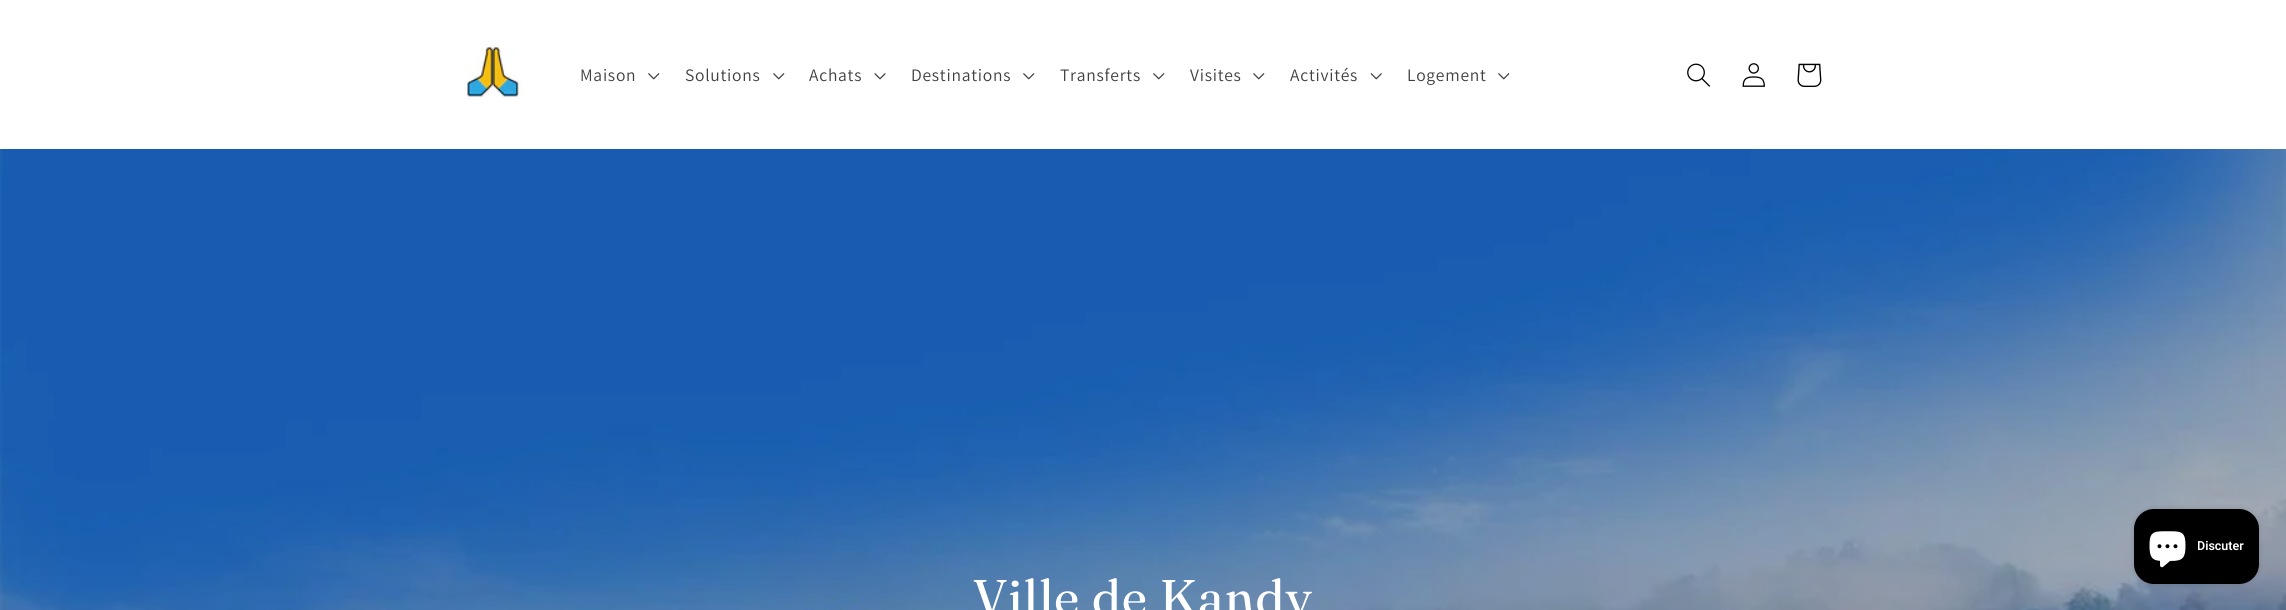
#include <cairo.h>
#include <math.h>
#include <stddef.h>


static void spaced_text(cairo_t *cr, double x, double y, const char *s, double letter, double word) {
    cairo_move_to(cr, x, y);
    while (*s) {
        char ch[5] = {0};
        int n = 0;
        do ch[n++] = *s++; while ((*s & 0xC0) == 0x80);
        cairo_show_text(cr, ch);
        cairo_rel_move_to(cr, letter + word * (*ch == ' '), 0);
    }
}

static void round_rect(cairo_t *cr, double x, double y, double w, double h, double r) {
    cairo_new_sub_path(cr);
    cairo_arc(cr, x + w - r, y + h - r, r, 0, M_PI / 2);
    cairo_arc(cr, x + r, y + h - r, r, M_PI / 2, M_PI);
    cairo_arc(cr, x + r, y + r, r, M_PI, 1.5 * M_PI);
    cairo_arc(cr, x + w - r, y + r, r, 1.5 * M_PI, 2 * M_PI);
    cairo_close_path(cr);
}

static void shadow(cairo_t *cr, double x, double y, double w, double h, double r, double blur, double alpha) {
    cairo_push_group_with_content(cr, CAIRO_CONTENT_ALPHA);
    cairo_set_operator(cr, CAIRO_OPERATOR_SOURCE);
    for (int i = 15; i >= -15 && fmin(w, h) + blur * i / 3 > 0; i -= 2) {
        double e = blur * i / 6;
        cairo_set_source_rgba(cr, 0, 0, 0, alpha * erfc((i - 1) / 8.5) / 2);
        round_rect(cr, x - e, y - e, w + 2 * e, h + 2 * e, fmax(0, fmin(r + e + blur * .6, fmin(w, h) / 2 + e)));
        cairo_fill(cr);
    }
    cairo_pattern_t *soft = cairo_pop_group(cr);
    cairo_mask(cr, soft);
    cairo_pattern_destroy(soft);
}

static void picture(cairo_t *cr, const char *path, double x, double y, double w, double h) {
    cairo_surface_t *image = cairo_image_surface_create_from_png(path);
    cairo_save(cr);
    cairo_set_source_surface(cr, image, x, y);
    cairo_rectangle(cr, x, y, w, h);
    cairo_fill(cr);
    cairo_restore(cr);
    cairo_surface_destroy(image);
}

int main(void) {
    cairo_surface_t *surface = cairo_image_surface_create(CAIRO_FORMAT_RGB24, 2286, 610);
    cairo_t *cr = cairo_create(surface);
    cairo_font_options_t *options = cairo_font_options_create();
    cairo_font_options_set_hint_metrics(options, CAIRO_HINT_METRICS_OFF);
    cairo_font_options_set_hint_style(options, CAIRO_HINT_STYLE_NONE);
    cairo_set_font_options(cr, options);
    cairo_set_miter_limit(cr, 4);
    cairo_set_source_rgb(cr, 1, 1, 1);
    cairo_paint(cr);
    picture(cr, "img1.png", 466, 45, 56, 55);
    cairo_select_font_face(cr, "Assistant", CAIRO_FONT_SLANT_NORMAL, CAIRO_FONT_WEIGHT_NORMAL);
    cairo_set_font_size(cr, 17.5);
    cairo_set_source_rgb(cr, 0.251, 0.251, 0.251);
    spaced_text(cr, 580, 81, "Maison", 0.75, 0);
    picture(cr, "img2.png", 648, 73, 12, 7);
    spaced_text(cr, 685, 81, "Solutions", 0.75, 0);
    picture(cr, "img2.png", 773, 73, 12, 7);
    spaced_text(cr, 809, 81, "Achats", 0.75, 0);
    picture(cr, "img3.png", 874, 73, 12, 7);
    spaced_text(cr, 911, 81, "Destinations", 0.75, 0);
    picture(cr, "img2.png", 1023, 73, 12, 7);
    spaced_text(cr, 1060, 81, "Transferts", 0.75, 0);
    picture(cr, "img2.png", 1153, 73, 12, 7);
    spaced_text(cr, 1190, 81, "Visites", 0.75, 0);
    picture(cr, "img2.png", 1253, 73, 12, 7);
    spaced_text(cr, 1290, 81, "Activités", 0.75, 0);
    picture(cr, "img4.png", 1370, 73, 12, 7);
    spaced_text(cr, 1407, 81, "Logement", 0.75, 0);
    picture(cr, "img2.png", 1498, 73, 12, 7);
    picture(cr, "img5.png", 1687, 63, 23, 24);
    picture(cr, "img6.png", 1742, 63, 23, 24);
    picture(cr, "img7.png", 1797, 63, 25, 24);
    picture(cr, "img9.png", 0, 149, 2286, 461);
    cairo_set_source_rgb(cr, 0, 0, 0);
    shadow(cr, 2134, 509, 125, 75, 20, 3, 0.15);
    cairo_set_source_rgb(cr, 0, 0, 0);
    round_rect(cr, 2134, 509, 125, 75, 20);
    cairo_fill(cr);
    picture(cr, "img8.png", 2149, 531, 37, 37);
    cairo_save(cr);
    cairo_rectangle(cr, 2198, 528, 46, 37);
    cairo_clip(cr);
    cairo_select_font_face(cr, "Roboto SemiBold", CAIRO_FONT_SLANT_NORMAL, CAIRO_FONT_WEIGHT_NORMAL);
    cairo_set_font_size(cr, 12.5);
    cairo_set_source_rgb(cr, 1, 1, 1);
    cairo_move_to(cr, 2197, 550);
    cairo_show_text(cr, "Discuter");
    cairo_restore(cr);
    cairo_select_font_face(cr, "Fraunces", CAIRO_FONT_SLANT_NORMAL, CAIRO_FONT_WEIGHT_NORMAL);
    cairo_set_font_size(cr, 50);
    cairo_set_source_rgb(cr, 1, 1, 1);
    spaced_text(cr, 973, 615, "Ville de Kandy", 0.75, 0);
    cairo_surface_write_to_png(surface, "page.png");
    cairo_font_options_destroy(options);
    cairo_destroy(cr);
    cairo_surface_destroy(surface);
    return 0;
}
